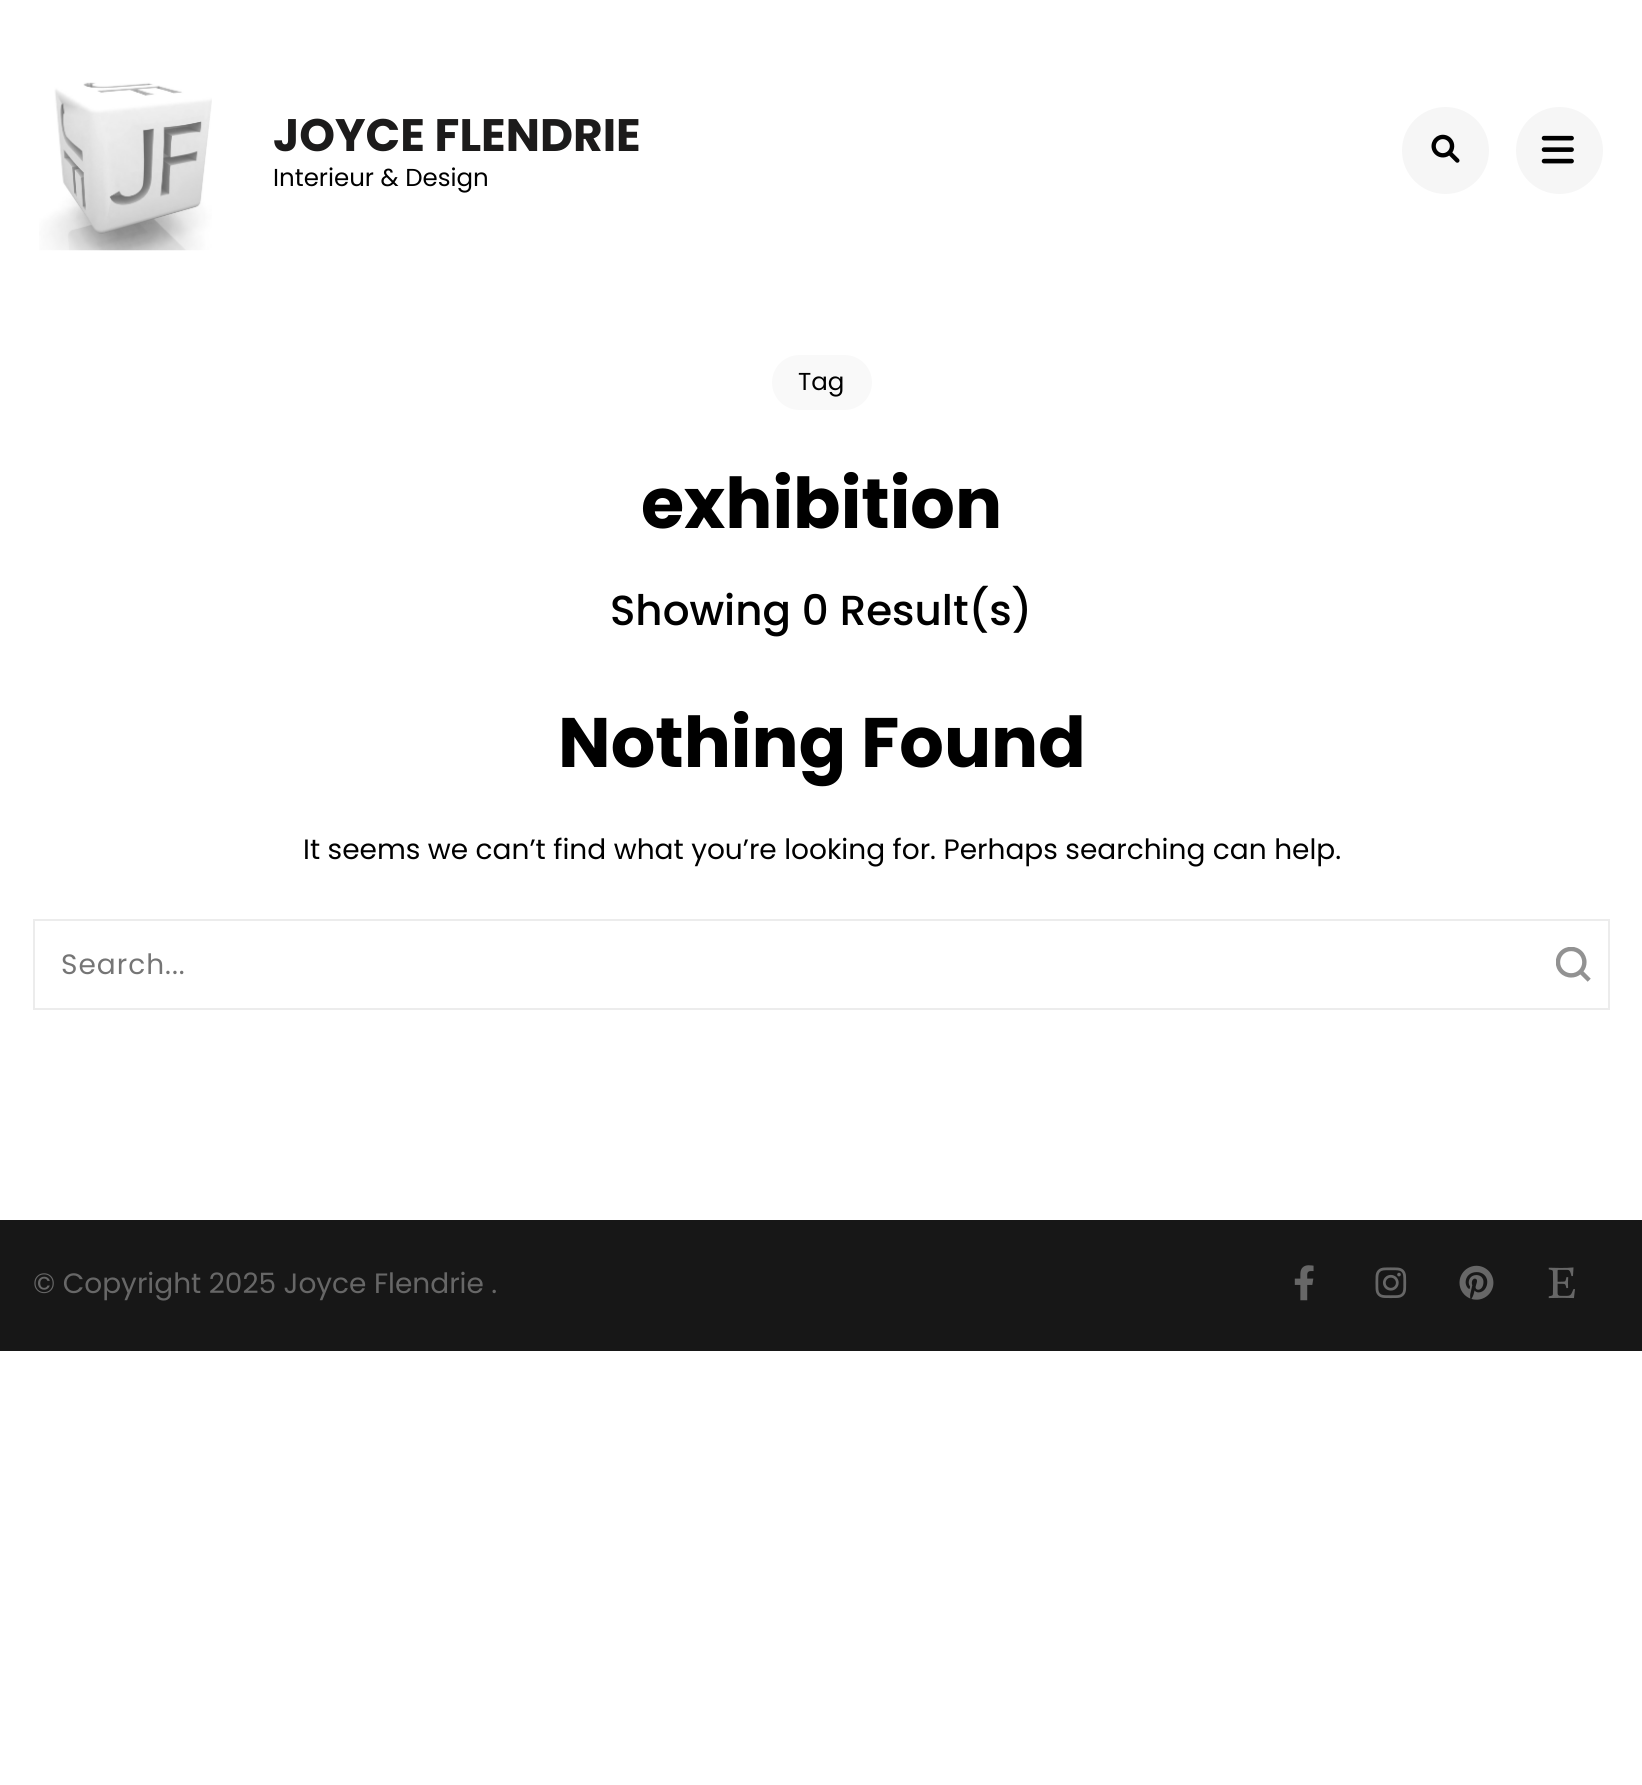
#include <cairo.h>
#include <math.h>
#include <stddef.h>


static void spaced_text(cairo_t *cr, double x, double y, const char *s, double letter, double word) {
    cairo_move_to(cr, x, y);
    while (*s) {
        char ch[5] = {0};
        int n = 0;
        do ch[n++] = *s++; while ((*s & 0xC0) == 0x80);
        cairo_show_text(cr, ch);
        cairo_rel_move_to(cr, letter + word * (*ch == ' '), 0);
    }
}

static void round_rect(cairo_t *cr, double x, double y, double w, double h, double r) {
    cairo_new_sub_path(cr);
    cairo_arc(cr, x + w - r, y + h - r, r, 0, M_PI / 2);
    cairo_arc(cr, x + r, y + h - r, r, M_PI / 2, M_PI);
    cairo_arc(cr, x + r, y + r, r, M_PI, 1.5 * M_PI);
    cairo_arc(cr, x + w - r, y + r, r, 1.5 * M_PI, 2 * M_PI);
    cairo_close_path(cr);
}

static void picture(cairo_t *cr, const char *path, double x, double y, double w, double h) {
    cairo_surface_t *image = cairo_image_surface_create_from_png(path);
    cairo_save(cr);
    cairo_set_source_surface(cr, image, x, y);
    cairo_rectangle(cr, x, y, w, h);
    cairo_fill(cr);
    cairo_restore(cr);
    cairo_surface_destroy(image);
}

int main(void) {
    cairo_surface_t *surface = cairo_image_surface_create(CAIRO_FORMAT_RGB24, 1642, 1785);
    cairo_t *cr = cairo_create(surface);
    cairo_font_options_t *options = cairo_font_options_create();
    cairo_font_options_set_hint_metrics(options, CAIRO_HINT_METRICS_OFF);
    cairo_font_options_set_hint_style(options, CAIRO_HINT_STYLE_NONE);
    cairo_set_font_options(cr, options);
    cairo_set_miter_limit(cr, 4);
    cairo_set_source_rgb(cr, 1, 1, 1);
    cairo_paint(cr);
    picture(cr, "img1.png", 39, 82, 173, 169);
    cairo_select_font_face(cr, "Poppins", CAIRO_FONT_SLANT_NORMAL, CAIRO_FONT_WEIGHT_BOLD);
    cairo_set_font_size(cr, 45.5);
    cairo_set_source_rgb(cr, 0.11, 0.106, 0.106);
    cairo_move_to(cr, 273, 151);
    cairo_show_text(cr, "JOYCE FLENDRIE");
    cairo_select_font_face(cr, "Poppins", CAIRO_FONT_SLANT_NORMAL, CAIRO_FONT_WEIGHT_NORMAL);
    cairo_set_font_size(cr, 24.5);
    cairo_set_source_rgb(cr, 0, 0, 0);
    cairo_move_to(cr, 273, 186);
    cairo_show_text(cr, "Interieur & Design");
    cairo_set_source_rgb(cr, 0.961, 0.961, 0.961);
    cairo_new_path(cr);
    cairo_arc(cr, 1445.5, 150.5, 43.5, 0, 2 * M_PI);
    cairo_fill(cr);
    picture(cr, "img2.png", 1431, 134, 29, 29);
    cairo_arc(cr, 1559.5, 150.5, 43.5, 0, 2 * M_PI);
    cairo_fill(cr);
    picture(cr, "img3.png", 1541, 135, 33, 29);
    cairo_set_source_rgb(cr, 0.973, 0.973, 0.973);
    round_rect(cr, 772, 355, 100, 55, 27.5);
    cairo_fill(cr);
    cairo_set_source_rgb(cr, 0, 0, 0);
    cairo_move_to(cr, 798, 390);
    cairo_show_text(cr, "Tag");
    cairo_select_font_face(cr, "Poppins", CAIRO_FONT_SLANT_NORMAL, CAIRO_FONT_WEIGHT_BOLD);
    cairo_set_font_size(cr, 70);
    cairo_move_to(cr, 641, 528);
    cairo_show_text(cr, "exhibition");
    cairo_select_font_face(cr, "Poppins Medium", CAIRO_FONT_SLANT_NORMAL, CAIRO_FONT_WEIGHT_NORMAL);
    cairo_set_font_size(cr, 42);
    cairo_move_to(cr, 610, 625);
    cairo_show_text(cr, "Showing 0 Result(s)");
    cairo_select_font_face(cr, "Poppins", CAIRO_FONT_SLANT_NORMAL, CAIRO_FONT_WEIGHT_BOLD);
    cairo_set_font_size(cr, 70);
    cairo_move_to(cr, 558, 767);
    cairo_show_text(cr, "Nothing Found");
    cairo_select_font_face(cr, "Poppins", CAIRO_FONT_SLANT_NORMAL, CAIRO_FONT_WEIGHT_NORMAL);
    cairo_set_font_size(cr, 28);
    cairo_move_to(cr, 303, 859);
    cairo_show_text(cr, "It seems we can’t find what you’re looking for. Perhaps searching can help.");
    cairo_rectangle(cr, 34, 920, 1575, 89);
    cairo_set_source_rgb(cr, 0.925, 0.925, 0.925);
    cairo_stroke(cr);
    cairo_set_source_rgb(cr, 0.459, 0.459, 0.459);
    spaced_text(cr, 61, 974, "Search...", 1, 0);
    picture(cr, "img4.png", 1556, 947, 35, 35);
    cairo_set_source_rgb(cr, 0.09, 0.09, 0.09);
    cairo_rectangle(cr, 0, 1220, 1642, 131);
    cairo_fill(cr);
    cairo_set_source_rgb(cr, 0.404, 0.404, 0.404);
    cairo_move_to(cr, 33, 1293);
    cairo_show_text(cr, "© Copyright 2025 Joyce Flendrie .");
    picture(cr, "img5.png", 1294, 1265, 20, 36);
    picture(cr, "img6.png", 1375, 1267, 32, 32);
    picture(cr, "img7.png", 1459, 1265, 35, 35);
    picture(cr, "img8.png", 1548, 1267, 27, 32);
    cairo_surface_write_to_png(surface, "page.png");
    cairo_font_options_destroy(options);
    cairo_destroy(cr);
    cairo_surface_destroy(surface);
    return 0;
}
